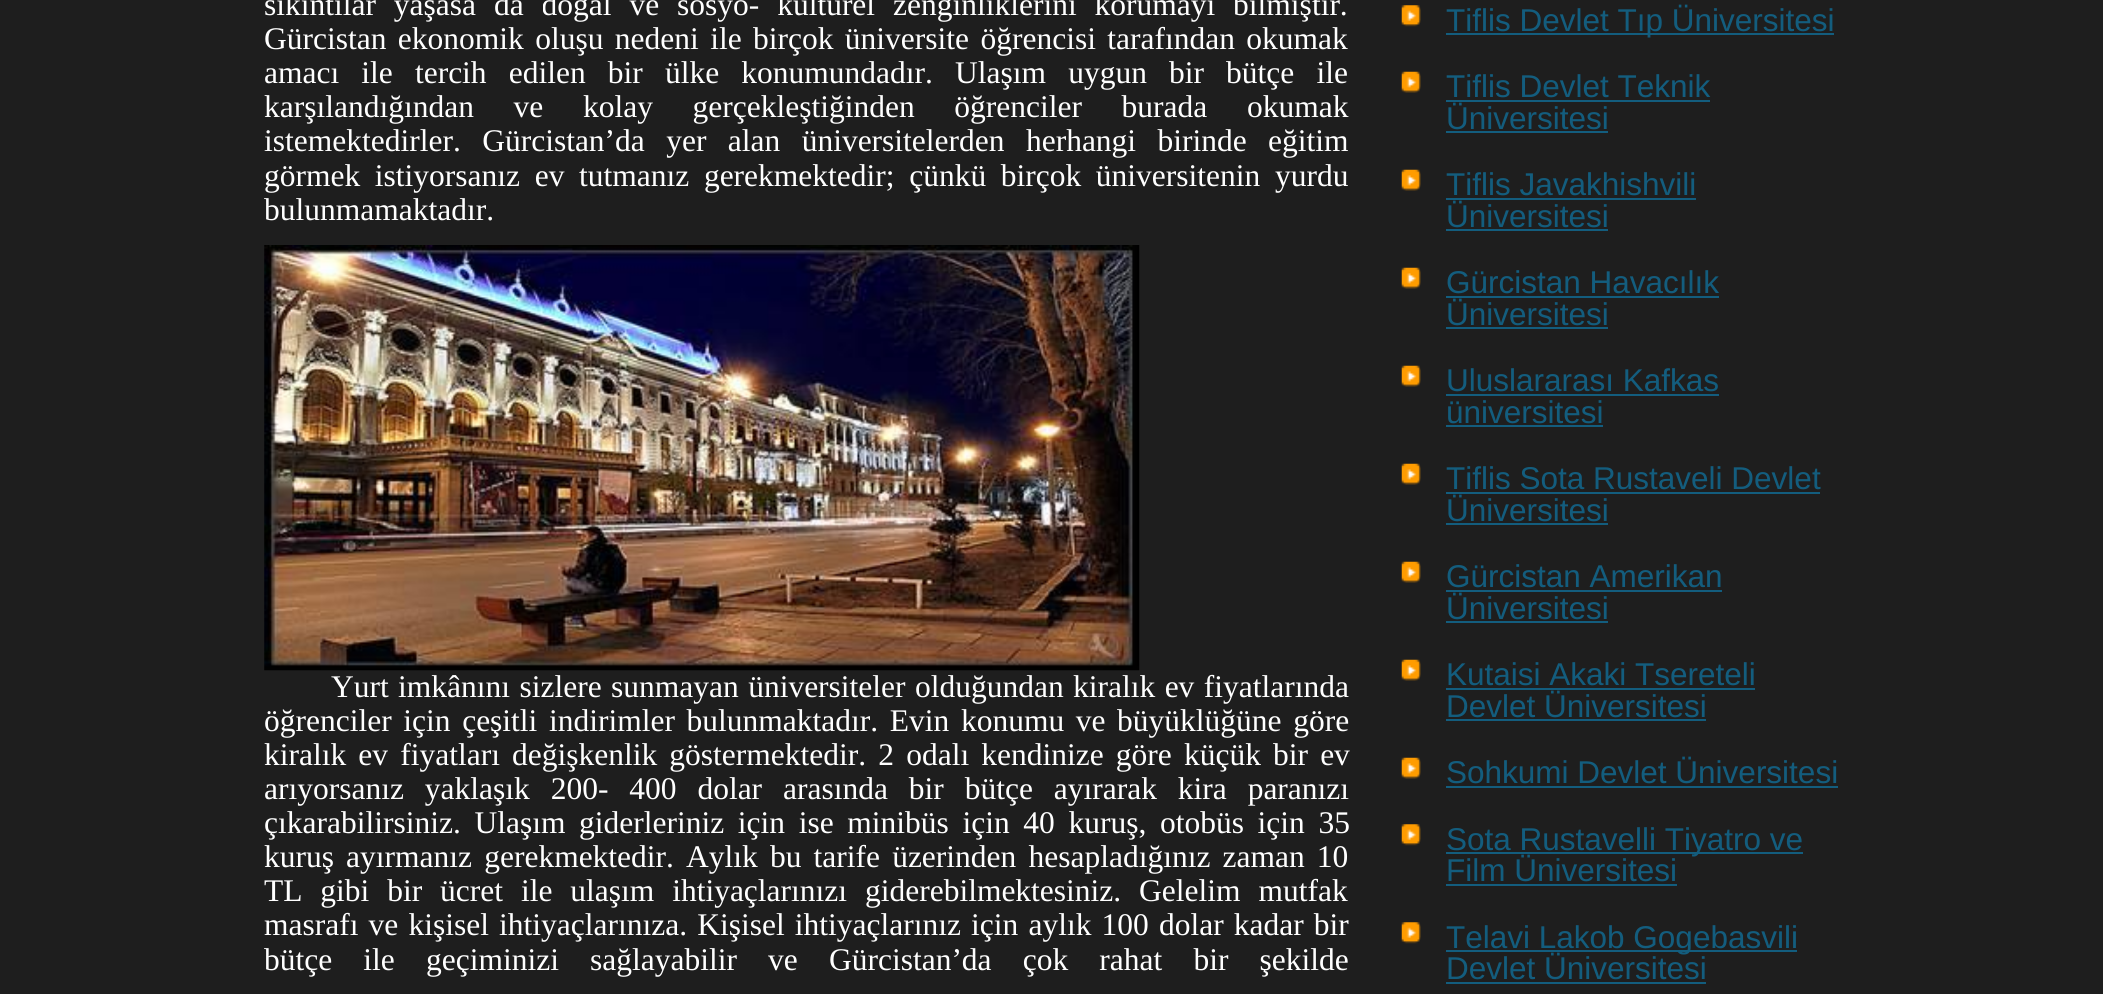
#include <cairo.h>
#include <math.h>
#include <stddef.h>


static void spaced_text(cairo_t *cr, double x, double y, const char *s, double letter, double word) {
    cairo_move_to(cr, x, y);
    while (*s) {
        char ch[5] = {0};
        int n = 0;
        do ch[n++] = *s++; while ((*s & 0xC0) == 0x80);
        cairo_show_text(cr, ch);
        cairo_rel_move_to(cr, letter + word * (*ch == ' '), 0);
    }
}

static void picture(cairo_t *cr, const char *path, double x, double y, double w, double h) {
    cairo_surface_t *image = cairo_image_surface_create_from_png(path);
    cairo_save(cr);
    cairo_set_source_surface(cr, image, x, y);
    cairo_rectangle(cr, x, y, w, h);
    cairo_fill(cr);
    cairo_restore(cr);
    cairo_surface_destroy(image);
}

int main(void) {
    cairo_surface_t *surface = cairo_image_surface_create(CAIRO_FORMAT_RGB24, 2103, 994);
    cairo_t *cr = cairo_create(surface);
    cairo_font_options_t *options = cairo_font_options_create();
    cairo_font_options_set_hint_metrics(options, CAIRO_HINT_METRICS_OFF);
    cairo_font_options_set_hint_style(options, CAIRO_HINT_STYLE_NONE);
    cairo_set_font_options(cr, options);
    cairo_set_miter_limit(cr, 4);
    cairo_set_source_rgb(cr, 0.118, 0.118, 0.118);
    cairo_paint(cr);
    cairo_select_font_face(cr, "Liberation Serif", CAIRO_FONT_SLANT_NORMAL, CAIRO_FONT_WEIGHT_NORMAL);
    cairo_set_font_size(cr, 31.5);
    cairo_set_source_rgb(cr, 1, 1, 1);
    spaced_text(cr, 264, 15, "sıkıntılar yaşasa da doğal ve sosyo- kültürel zenginliklerini korumayı bilmiştir.", 0, 10);
    spaced_text(cr, 264, 49, "Gürcistan ekonomik oluşu nedeni ile birçok üniversite öğrencisi tarafından okumak", 0, 3.5);
    spaced_text(cr, 264, 83, "amacı ile tercih edilen bir ülke konumundadır. Ulaşım uygun bir bütçe ile", 0, 14.25);
    spaced_text(cr, 264, 117, "karşılandığından ve kolay gerçekleştiğinden öğrenciler burada okumak", 0, 31.75);
    spaced_text(cr, 264, 151, "istemektedirler. Gürcistan’da yer alan üniversitelerden herhangi birinde eğitim", 0, 13.5);
    spaced_text(cr, 264, 186, "görmek istiyorsanız ev tutmanız gerekmektedir; çünkü birçok üniversitenin yurdu", 0, 6.75);
    cairo_move_to(cr, 264, 220);
    cairo_show_text(cr, "bulunmamaktadır.");
    picture(cr, "img1.png", 264, 245, 876, 426);
    spaced_text(cr, 331, 697, "Yurt imkânını sizlere sunmayan üniversiteler olduğundan kiralık ev fiyatlarında", 0, 1.5);
    spaced_text(cr, 264, 731, "öğrenciler için çeşitli indirimler bulunmaktadır. Evin konumu ve büyüklüğüne göre", 0, 3.75);
    spaced_text(cr, 264, 765, "kiralık ev fiyatları değişkenlik göstermektedir. 2 odalı kendinize göre küçük bir ev", 0, 4.25);
    spaced_text(cr, 264, 799, "arıyorsanız yaklaşık 200- 400 dolar arasında bir bütçe ayırarak kira paranızı", 0, 13);
    spaced_text(cr, 264, 833, "çıkarabilirsiniz. Ulaşım giderleriniz için ise minibüs için 40 kuruş, otobüs için 35", 0, 5.75);
    spaced_text(cr, 264, 867, "kuruş ayırmanız gerekmektedir. Aylık bu tarife üzerinden hesapladığınız zaman 10", 0, 4.25);
    spaced_text(cr, 264, 901, "TL gibi bir ücret ile ulaşım ihtiyaçlarınızı giderebilmektesiniz. Gelelim mutfak", 0, 10);
    spaced_text(cr, 264, 935, "masrafı ve kişisel ihtiyaçlarınıza. Kişisel ihtiyaçlarınız için aylık 100 dolar kadar bir", 0, 2.25);
    spaced_text(cr, 264, 970, "bütçe ile geçiminizi sağlayabilir ve Gürcistan’da çok rahat bir şekilde", 0, 23.25);
    picture(cr, "img2.png", 1401, 5, 20, 22);
    cairo_set_source_rgb(cr, 0.078, 0.365, 0.494);
    cairo_rectangle(cr, 1446, 33, 388, 2);
    cairo_fill(cr);
    cairo_select_font_face(cr, "Liberation Sans", CAIRO_FONT_SLANT_NORMAL, CAIRO_FONT_WEIGHT_NORMAL);
    cairo_move_to(cr, 1446, 31);
    cairo_show_text(cr, "Tiflis Devlet Tıp Üniversitesi");
    picture(cr, "img3.png", 1401, 71, 20, 22);
    cairo_move_to(cr, 1446, 97);
    cairo_show_text(cr, "Tiflis Devlet Teknik");
    cairo_rectangle(cr, 1446, 100, 264, 2);
    cairo_fill(cr);
    cairo_move_to(cr, 1446, 129);
    cairo_show_text(cr, "Üniversitesi");
    cairo_rectangle(cr, 1446, 131, 162, 2);
    cairo_fill(cr);
    picture(cr, "img3.png", 1401, 169, 20, 22);
    cairo_move_to(cr, 1446, 195);
    cairo_show_text(cr, "Tiflis Javakhishvili");
    cairo_rectangle(cr, 1446, 198, 250, 2);
    cairo_fill(cr);
    cairo_move_to(cr, 1446, 227);
    cairo_show_text(cr, "Üniversitesi");
    cairo_rectangle(cr, 1446, 229, 162, 2);
    cairo_fill(cr);
    picture(cr, "img3.png", 1401, 267, 20, 22);
    cairo_move_to(cr, 1446, 293);
    cairo_show_text(cr, "Gürcistan Havacılık");
    cairo_rectangle(cr, 1446, 296, 273, 2);
    cairo_fill(cr);
    cairo_move_to(cr, 1446, 325);
    cairo_show_text(cr, "Üniversitesi");
    cairo_rectangle(cr, 1446, 327, 162, 2);
    cairo_fill(cr);
    picture(cr, "img3.png", 1401, 365, 20, 22);
    cairo_move_to(cr, 1446, 391);
    cairo_show_text(cr, "Uluslararası Kafkas");
    cairo_rectangle(cr, 1446, 394, 273, 2);
    cairo_fill(cr);
    cairo_move_to(cr, 1446, 423);
    cairo_show_text(cr, "üniversitesi");
    cairo_rectangle(cr, 1446, 425, 157, 2);
    cairo_fill(cr);
    picture(cr, "img3.png", 1401, 463, 20, 22);
    cairo_move_to(cr, 1446, 489);
    cairo_show_text(cr, "Tiflis Sota Rustaveli Devlet");
    cairo_rectangle(cr, 1446, 492, 374, 2);
    cairo_fill(cr);
    cairo_move_to(cr, 1446, 521);
    cairo_show_text(cr, "Üniversitesi");
    cairo_rectangle(cr, 1446, 523, 162, 2);
    cairo_fill(cr);
    picture(cr, "img3.png", 1401, 561, 20, 22);
    cairo_move_to(cr, 1446, 587);
    cairo_show_text(cr, "Gürcistan Amerikan");
    cairo_rectangle(cr, 1446, 590, 276, 2);
    cairo_fill(cr);
    cairo_move_to(cr, 1446, 619);
    cairo_show_text(cr, "Üniversitesi");
    cairo_rectangle(cr, 1446, 621, 162, 2);
    cairo_fill(cr);
    picture(cr, "img4.png", 1401, 659, 20, 22);
    cairo_move_to(cr, 1446, 685);
    cairo_show_text(cr, "Kutaisi Akaki Tsereteli");
    cairo_rectangle(cr, 1446, 688, 309, 2);
    cairo_fill(cr);
    cairo_move_to(cr, 1446, 717);
    cairo_show_text(cr, "Devlet Üniversitesi");
    cairo_rectangle(cr, 1446, 719, 260, 2);
    cairo_fill(cr);
    picture(cr, "img3.png", 1401, 757, 20, 22);
    cairo_move_to(cr, 1446, 783);
    cairo_show_text(cr, "Sohkumi Devlet Üniversitesi");
    cairo_rectangle(cr, 1446, 786, 392, 2);
    cairo_fill(cr);
    picture(cr, "img2.png", 1401, 824, 20, 22);
    cairo_rectangle(cr, 1446, 852, 357, 2);
    cairo_fill(cr);
    cairo_move_to(cr, 1446, 850);
    cairo_show_text(cr, "Sota Rustavelli Tiyatro ve");
    cairo_move_to(cr, 1446, 881);
    cairo_show_text(cr, "Film Üniversitesi");
    cairo_rectangle(cr, 1446, 884, 231, 2);
    cairo_fill(cr);
    picture(cr, "img5.png", 1401, 922, 20, 22);
    cairo_rectangle(cr, 1446, 950, 351, 2);
    cairo_fill(cr);
    cairo_move_to(cr, 1446, 948);
    cairo_show_text(cr, "Telavi Lakob Gogebasvili");
    cairo_move_to(cr, 1446, 979);
    cairo_show_text(cr, "Devlet Üniversitesi");
    cairo_rectangle(cr, 1446, 982, 260, 2);
    cairo_fill(cr);
    cairo_surface_write_to_png(surface, "page.png");
    cairo_font_options_destroy(options);
    cairo_destroy(cr);
    cairo_surface_destroy(surface);
    return 0;
}
